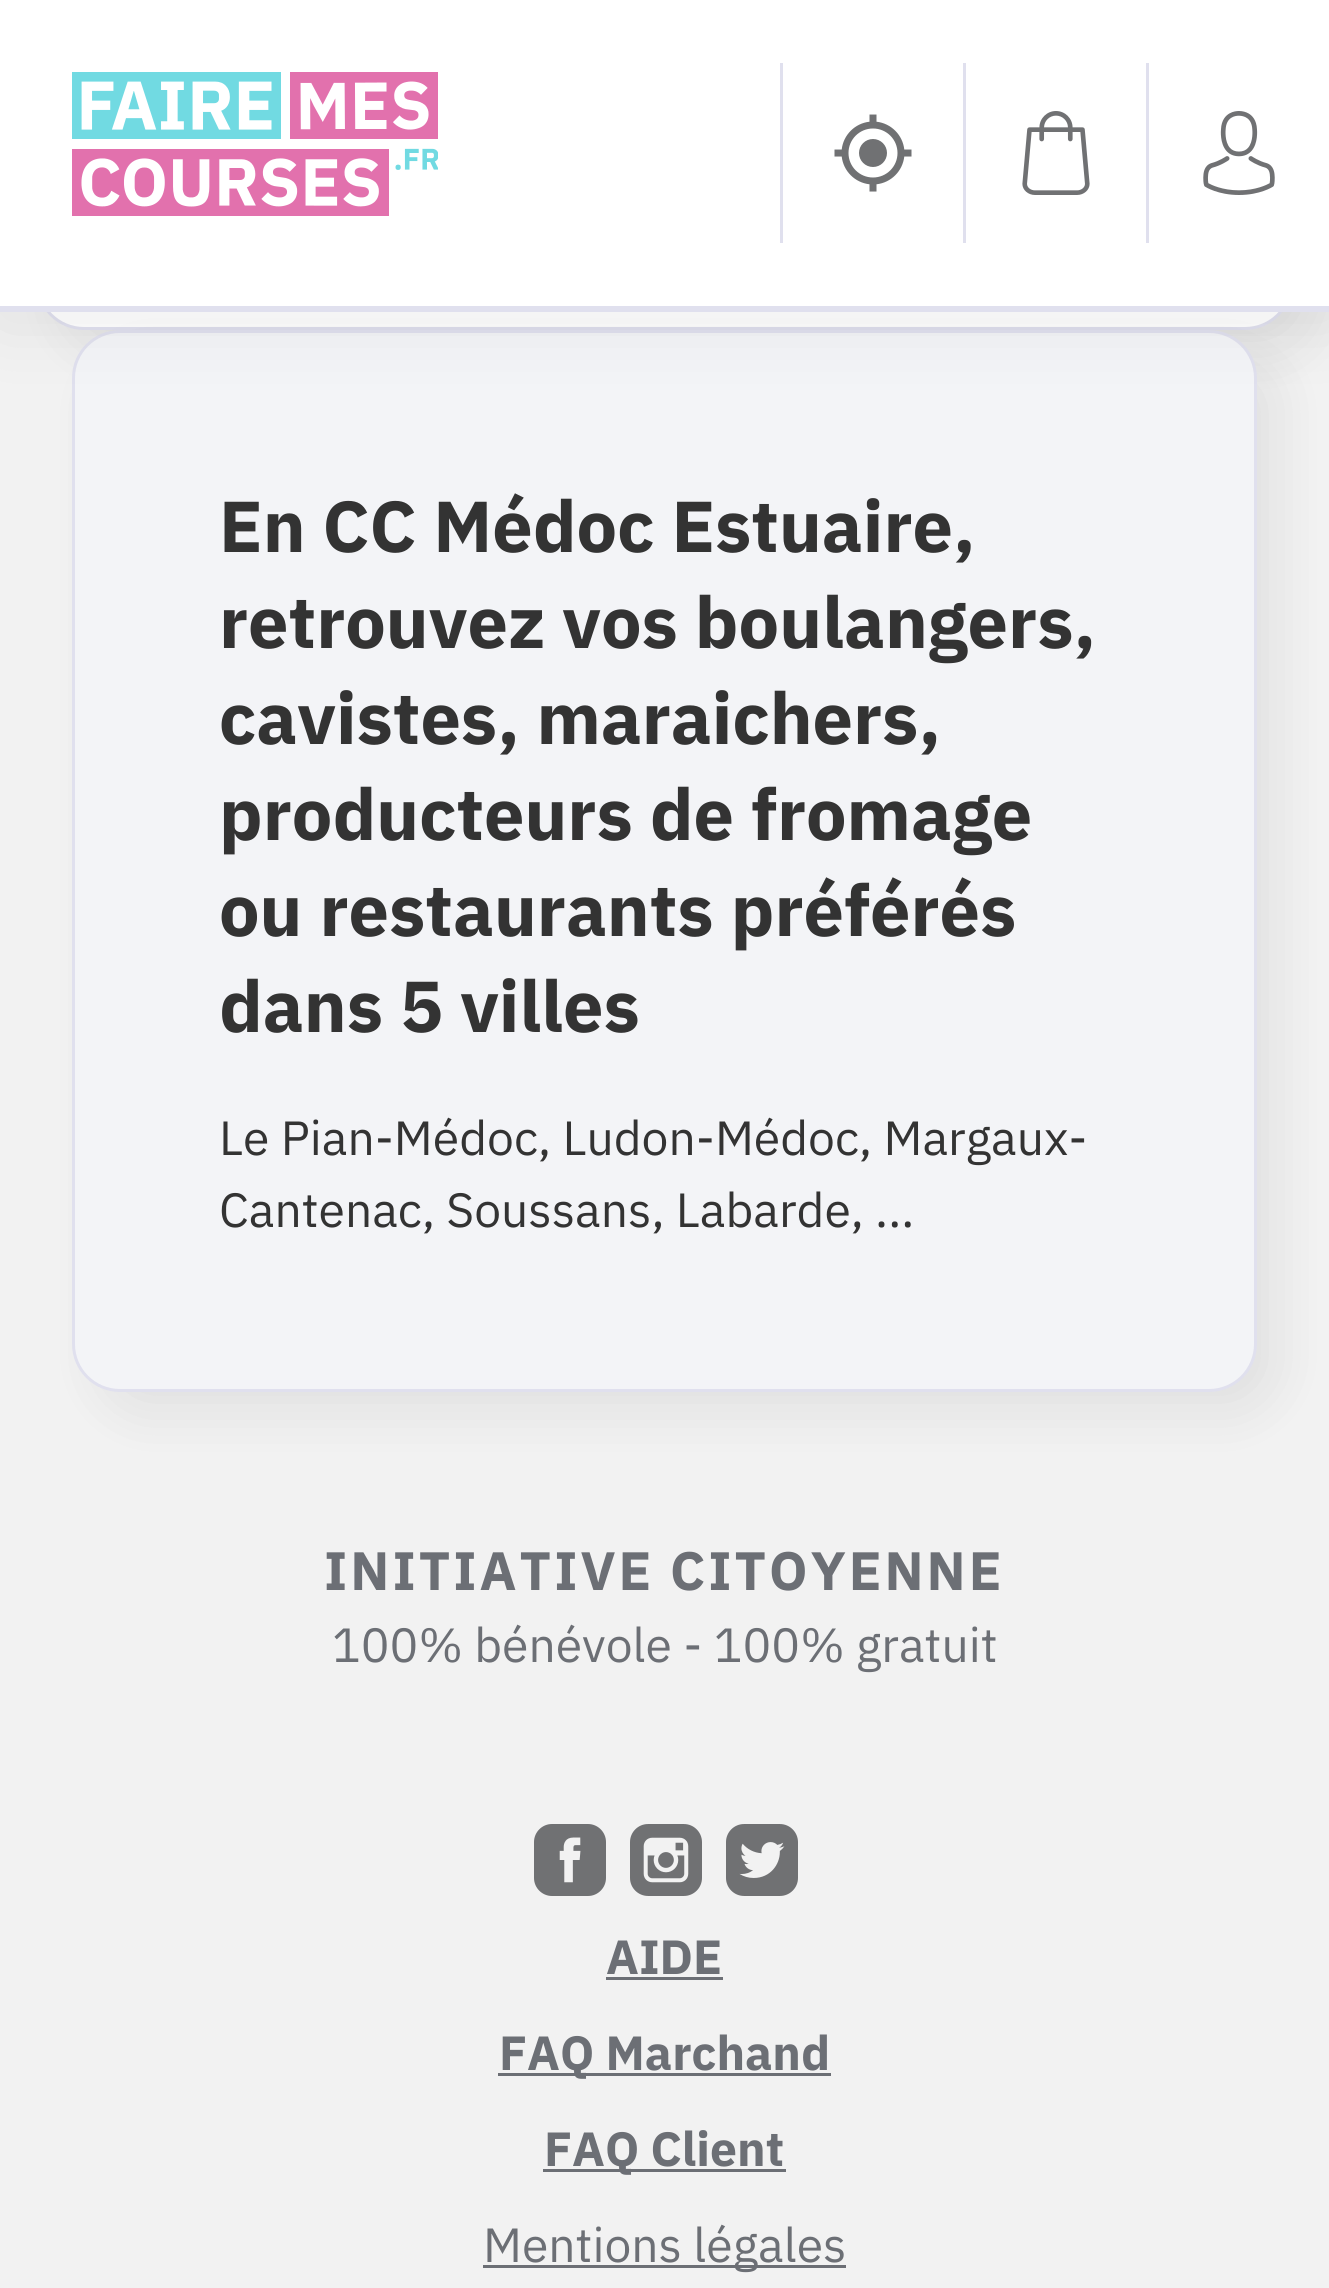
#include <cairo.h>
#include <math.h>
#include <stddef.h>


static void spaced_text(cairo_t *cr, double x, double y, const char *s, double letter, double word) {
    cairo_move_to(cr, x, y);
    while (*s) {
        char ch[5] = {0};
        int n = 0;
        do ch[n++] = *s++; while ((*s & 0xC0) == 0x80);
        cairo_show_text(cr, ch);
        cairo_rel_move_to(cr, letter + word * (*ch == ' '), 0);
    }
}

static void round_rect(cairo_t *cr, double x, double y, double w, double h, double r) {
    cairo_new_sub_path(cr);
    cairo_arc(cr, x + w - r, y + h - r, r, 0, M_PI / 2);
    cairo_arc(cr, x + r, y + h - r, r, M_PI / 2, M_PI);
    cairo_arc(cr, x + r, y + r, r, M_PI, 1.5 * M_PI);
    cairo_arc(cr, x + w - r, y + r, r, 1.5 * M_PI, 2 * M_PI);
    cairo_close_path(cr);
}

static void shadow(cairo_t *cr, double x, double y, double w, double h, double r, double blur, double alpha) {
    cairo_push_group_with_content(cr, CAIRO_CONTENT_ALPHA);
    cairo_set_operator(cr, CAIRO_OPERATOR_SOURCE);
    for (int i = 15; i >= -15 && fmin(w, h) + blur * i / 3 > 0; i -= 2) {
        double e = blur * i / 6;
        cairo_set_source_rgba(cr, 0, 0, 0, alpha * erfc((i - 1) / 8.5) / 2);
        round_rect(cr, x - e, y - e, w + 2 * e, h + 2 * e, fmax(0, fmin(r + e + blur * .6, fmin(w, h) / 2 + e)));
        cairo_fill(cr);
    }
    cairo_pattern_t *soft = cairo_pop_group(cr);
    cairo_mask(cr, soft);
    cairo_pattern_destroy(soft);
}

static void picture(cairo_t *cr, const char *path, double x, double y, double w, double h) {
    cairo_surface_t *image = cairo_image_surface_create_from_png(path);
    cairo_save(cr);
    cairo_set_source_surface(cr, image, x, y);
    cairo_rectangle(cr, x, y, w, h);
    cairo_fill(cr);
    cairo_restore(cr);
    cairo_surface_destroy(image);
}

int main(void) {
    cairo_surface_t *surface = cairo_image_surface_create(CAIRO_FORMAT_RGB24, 1329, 2288);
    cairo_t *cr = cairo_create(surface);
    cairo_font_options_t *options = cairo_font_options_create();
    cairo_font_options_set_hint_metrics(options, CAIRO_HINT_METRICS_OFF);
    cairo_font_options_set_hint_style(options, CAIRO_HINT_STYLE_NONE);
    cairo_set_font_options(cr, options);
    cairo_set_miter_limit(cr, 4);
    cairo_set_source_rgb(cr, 0.949, 0.949, 0.949);
    cairo_paint(cr);
    cairo_set_source_rgb(cr, 0.129, 0.129, 0.129);
    shadow(cr, 60, -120, 1257, 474, 48, 24, 0.08);
    cairo_set_source_rgb(cr, 1, 1, 1);
    round_rect(cr, 37.5, -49.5, 1254, 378, 46.5);
    cairo_fill_preserve(cr);
    cairo_set_source_rgb(cr, 0.878, 0.878, 0.933);
    cairo_set_line_width(cr, 3);
    cairo_stroke(cr);
    cairo_set_source_rgb(cr, 0.129, 0.129, 0.129);
    shadow(cr, 96, 354, 1185, 1062, 48, 24, 0.08);
    cairo_set_source_rgb(cr, 0.953, 0.957, 0.965);
    round_rect(cr, 73.5, 331.5, 1182, 1059, 46.5);
    cairo_fill_preserve(cr);
    cairo_set_source_rgb(cr, 0.878, 0.878, 0.933);
    cairo_stroke(cr);
    cairo_set_source_rgb(cr, 0.129, 0.129, 0.129);
    shadow(cr, 0, 0, 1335, 318, 0, 36, 0.1);
    cairo_set_source_rgb(cr, 1, 1, 1);
    cairo_rectangle(cr, 0, 0, 1329, 306);
    cairo_fill(cr);
    cairo_set_source_rgb(cr, 0.878, 0.878, 0.933);
    cairo_rectangle(cr, 0, 306, 1329, 6);
    cairo_fill(cr);
    picture(cr, "img1.png", 72, 72, 366, 144);
    cairo_rectangle(cr, 780, 63, 3, 180);
    cairo_fill(cr);
    picture(cr, "img2.png", 834, 114, 78, 78);
    cairo_rectangle(cr, 963, 63, 3, 180);
    cairo_fill(cr);
    picture(cr, "img3.png", 1022, 111, 68, 84);
    cairo_rectangle(cr, 1146, 63, 3, 180);
    cairo_fill(cr);
    picture(cr, "img4.png", 1203, 111, 72, 84);
    cairo_select_font_face(cr, "IBM Plex Sans", CAIRO_FONT_SLANT_NORMAL, CAIRO_FONT_WEIGHT_BOLD);
    cairo_set_font_size(cr, 72);
    cairo_set_source_rgb(cr, 0.2, 0.2, 0.2);
    cairo_move_to(cr, 219, 552);
    cairo_show_text(cr, "En CC Médoc Estuaire,");
    cairo_move_to(cr, 219, 648);
    cairo_show_text(cr, "retrouvez vos boulangers,");
    cairo_move_to(cr, 219, 744);
    cairo_show_text(cr, "cavistes, maraichers,");
    cairo_move_to(cr, 219, 840);
    cairo_show_text(cr, "producteurs de fromage");
    cairo_move_to(cr, 219, 936);
    cairo_show_text(cr, "ou restaurants préférés");
    cairo_move_to(cr, 219, 1032);
    cairo_show_text(cr, "dans 5 villes");
    cairo_select_font_face(cr, "IBM Plex Sans", CAIRO_FONT_SLANT_NORMAL, CAIRO_FONT_WEIGHT_NORMAL);
    cairo_set_font_size(cr, 48);
    cairo_move_to(cr, 219, 1155);
    cairo_show_text(cr, "Le Pian-Médoc, Ludon-Médoc, Margaux-");
    cairo_move_to(cr, 219, 1227);
    cairo_show_text(cr, "Cantenac, Soussans, Labarde, ...");
    cairo_select_font_face(cr, "IBM Plex Sans", CAIRO_FONT_SLANT_NORMAL, CAIRO_FONT_WEIGHT_BOLD);
    cairo_set_font_size(cr, 54);
    cairo_set_source_rgb(cr, 0.424, 0.435, 0.459);
    spaced_text(cr, 324, 1590, "INITIATIVE CITOYENNE", 3, 0);
    cairo_select_font_face(cr, "IBM Plex Sans", CAIRO_FONT_SLANT_NORMAL, CAIRO_FONT_WEIGHT_NORMAL);
    cairo_set_font_size(cr, 48);
    cairo_move_to(cr, 332, 1662);
    cairo_show_text(cr, "100% bénévole - 100% gratuit");
    picture(cr, "img5.png", 534, 1824, 72, 72);
    picture(cr, "img6.png", 630, 1824, 72, 72);
    picture(cr, "img7.png", 726, 1824, 72, 72);
    cairo_select_font_face(cr, "IBM Plex Sans", CAIRO_FONT_SLANT_NORMAL, CAIRO_FONT_WEIGHT_BOLD);
    cairo_move_to(cr, 606, 1974);
    cairo_show_text(cr, "AIDE");
    cairo_rectangle(cr, 606, 1977, 117, 3);
    cairo_fill(cr);
    cairo_rectangle(cr, 498, 2073, 333, 3);
    cairo_fill(cr);
    cairo_move_to(cr, 499, 2070);
    cairo_show_text(cr, "FAQ Marchand");
    cairo_rectangle(cr, 543, 2169, 243, 3);
    cairo_fill(cr);
    cairo_move_to(cr, 544, 2166);
    cairo_show_text(cr, "FAQ Client");
    cairo_rectangle(cr, 483, 2265, 363, 3);
    cairo_fill(cr);
    cairo_select_font_face(cr, "IBM Plex Sans", CAIRO_FONT_SLANT_NORMAL, CAIRO_FONT_WEIGHT_NORMAL);
    cairo_move_to(cr, 483, 2262);
    cairo_show_text(cr, "Mentions légales");
    cairo_surface_write_to_png(surface, "page.png");
    cairo_font_options_destroy(options);
    cairo_destroy(cr);
    cairo_surface_destroy(surface);
    return 0;
}
